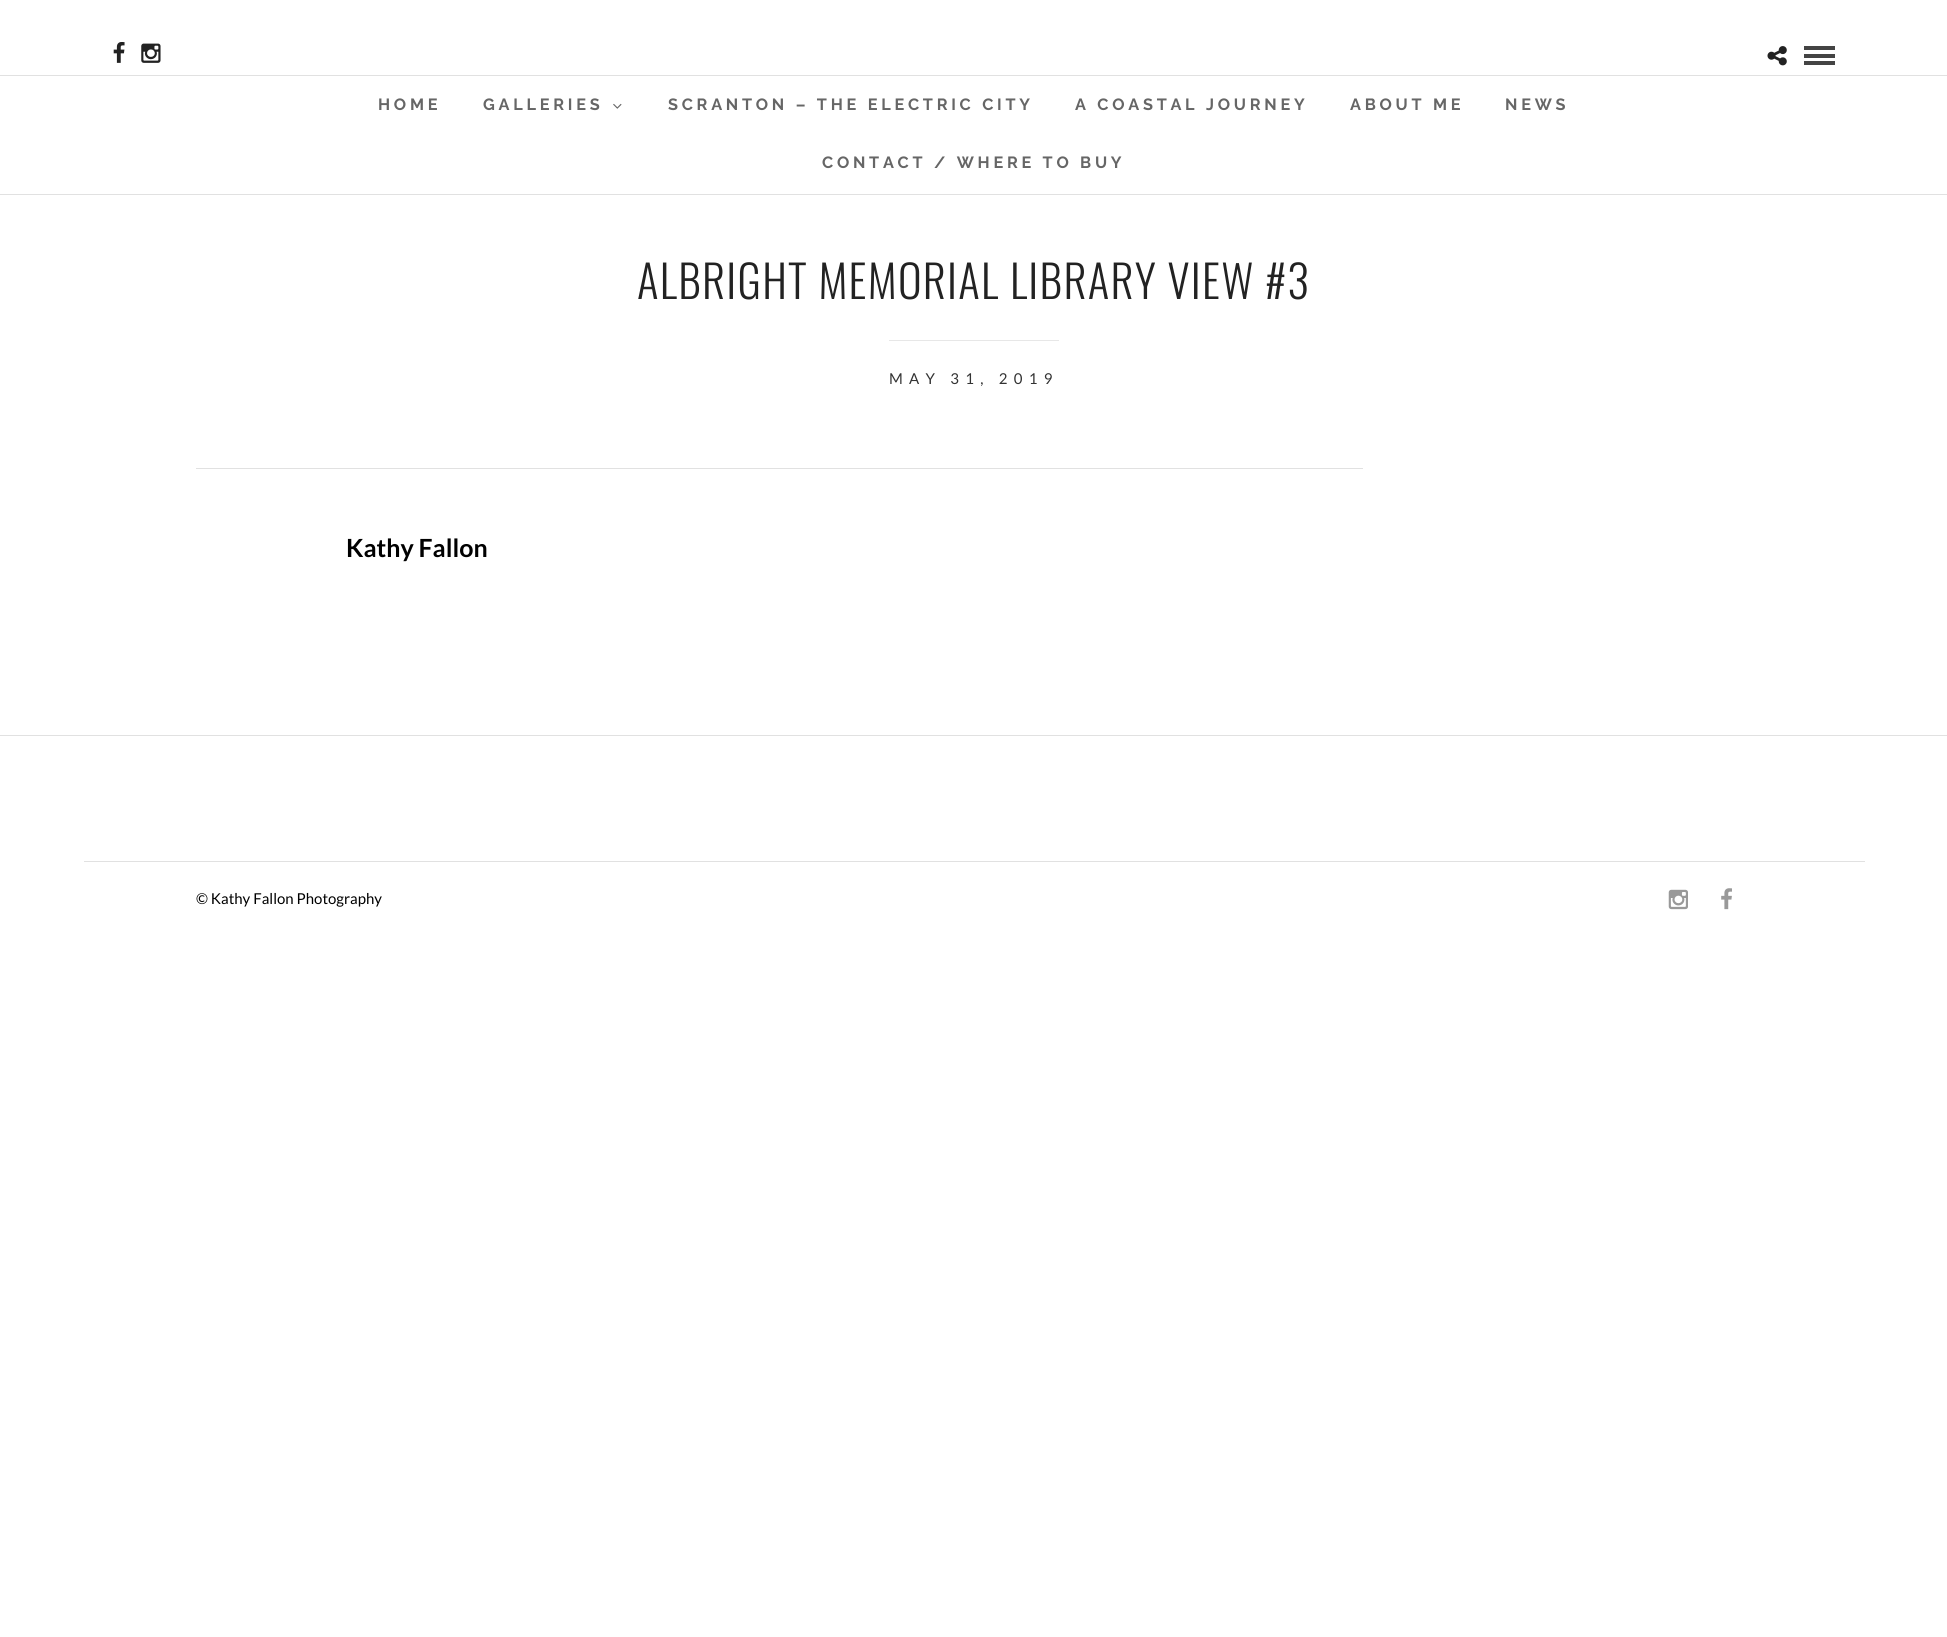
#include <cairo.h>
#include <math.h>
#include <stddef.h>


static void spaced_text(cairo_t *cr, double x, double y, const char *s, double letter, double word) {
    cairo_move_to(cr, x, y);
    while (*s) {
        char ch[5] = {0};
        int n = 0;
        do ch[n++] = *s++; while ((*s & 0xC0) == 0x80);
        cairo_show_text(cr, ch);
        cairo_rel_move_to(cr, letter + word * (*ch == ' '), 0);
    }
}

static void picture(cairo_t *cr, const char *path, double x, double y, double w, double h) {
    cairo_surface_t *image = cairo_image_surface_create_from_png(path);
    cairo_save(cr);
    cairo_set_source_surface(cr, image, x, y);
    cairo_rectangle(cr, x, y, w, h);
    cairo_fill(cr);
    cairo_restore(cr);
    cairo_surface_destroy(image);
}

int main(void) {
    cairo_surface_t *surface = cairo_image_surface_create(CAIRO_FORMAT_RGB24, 1947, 1637);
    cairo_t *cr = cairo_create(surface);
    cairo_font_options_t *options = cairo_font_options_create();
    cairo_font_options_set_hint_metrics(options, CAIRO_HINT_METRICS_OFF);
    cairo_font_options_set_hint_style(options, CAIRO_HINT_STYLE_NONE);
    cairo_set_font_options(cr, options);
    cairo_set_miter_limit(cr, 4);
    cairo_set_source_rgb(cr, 1, 1, 1);
    cairo_paint(cr);
    cairo_set_source_rgb(cr, 0.882, 0.882, 0.882);
    cairo_rectangle(cr, 0, 194, 1947, 1);
    cairo_fill(cr);
    cairo_rectangle(cr, 0, 75, 1947, 1);
    cairo_fill(cr);
    picture(cr, "img1.png", 113, 42, 12, 21);
    picture(cr, "img2.png", 141, 43, 20, 20);
    picture(cr, "img3.png", 1767, 46, 20, 20);
    cairo_set_source_rgb(cr, 0.267, 0.267, 0.267);
    cairo_rectangle(cr, 1804, 46, 31, 4);
    cairo_fill(cr);
    cairo_rectangle(cr, 1804, 54, 31, 4);
    cairo_fill(cr);
    cairo_rectangle(cr, 1804, 61, 31, 4);
    cairo_fill(cr);
    cairo_select_font_face(cr, "Raleway", CAIRO_FONT_SLANT_NORMAL, CAIRO_FONT_WEIGHT_BOLD);
    cairo_set_font_size(cr, 16.25);
    cairo_set_source_rgb(cr, 0.4, 0.4, 0.4);
    spaced_text(cr, 378, 110, "HOME", 3.75, 0);
    spaced_text(cr, 483, 110, "GALLERIES", 3.75, 0);
    picture(cr, "img4.png", 613, 103, 9, 6);
    spaced_text(cr, 668, 110, "SCRANTON – THE ELECTRIC CITY", 3.75, 0);
    spaced_text(cr, 1075, 110, "A COASTAL JOURNEY", 3.75, 0);
    spaced_text(cr, 1350, 110, "ABOUT ME", 3.75, 0);
    spaced_text(cr, 1505, 110, "NEWS", 3.75, 0);
    spaced_text(cr, 822, 168, "CONTACT / WHERE TO BUY", 3.75, 0);
    cairo_select_font_face(cr, "Oswald Light", CAIRO_FONT_SLANT_NORMAL, CAIRO_FONT_WEIGHT_NORMAL);
    cairo_set_font_size(cr, 45);
    cairo_set_source_rgb(cr, 0.133, 0.133, 0.133);
    spaced_text(cr, 637, 299, "ALBRIGHT MEMORIAL LIBRARY VIEW #3", 1.25, 0);
    cairo_set_source_rgb(cr, 0.906, 0.906, 0.906);
    cairo_rectangle(cr, 889, 340, 170, 1);
    cairo_fill(cr);
    cairo_select_font_face(cr, "Lato", CAIRO_FONT_SLANT_NORMAL, CAIRO_FONT_WEIGHT_NORMAL);
    cairo_set_font_size(cr, 15);
    cairo_set_source_rgb(cr, 0.2, 0.2, 0.2);
    spaced_text(cr, 889, 384, "MAY 31, 2019", 6.25, 0);
    cairo_set_source_rgb(cr, 0.882, 0.882, 0.882);
    cairo_rectangle(cr, 196, 468, 1167, 1);
    cairo_fill(cr);
    cairo_select_font_face(cr, "Lato", CAIRO_FONT_SLANT_NORMAL, CAIRO_FONT_WEIGHT_BOLD);
    cairo_set_font_size(cr, 25);
    cairo_set_source_rgb(cr, 0, 0, 0);
    cairo_move_to(cr, 346, 557);
    cairo_show_text(cr, "Kathy Fallon");
    cairo_set_source_rgb(cr, 0.882, 0.882, 0.882);
    cairo_rectangle(cr, 0, 735, 1947, 1);
    cairo_fill(cr);
    cairo_rectangle(cr, 84, 861, 1781, 1);
    cairo_fill(cr);
    cairo_select_font_face(cr, "Lato", CAIRO_FONT_SLANT_NORMAL, CAIRO_FONT_WEIGHT_NORMAL);
    cairo_set_font_size(cr, 15);
    cairo_set_source_rgb(cr, 0, 0, 0);
    cairo_move_to(cr, 196, 904);
    cairo_show_text(cr, "© Kathy Fallon Photography");
    picture(cr, "img5.png", 1668, 889, 20, 21);
    picture(cr, "img6.png", 1721, 888, 11, 22);
    cairo_surface_write_to_png(surface, "page.png");
    cairo_font_options_destroy(options);
    cairo_destroy(cr);
    cairo_surface_destroy(surface);
    return 0;
}
